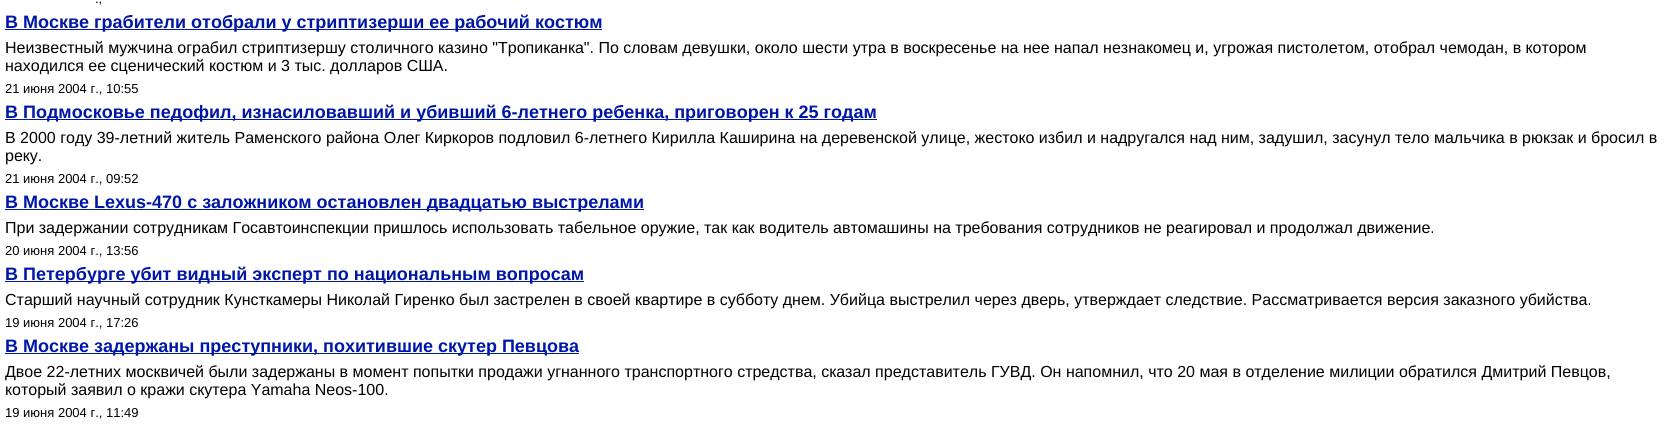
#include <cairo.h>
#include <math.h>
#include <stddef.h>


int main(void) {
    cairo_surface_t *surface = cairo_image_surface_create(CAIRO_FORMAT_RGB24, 1666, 433);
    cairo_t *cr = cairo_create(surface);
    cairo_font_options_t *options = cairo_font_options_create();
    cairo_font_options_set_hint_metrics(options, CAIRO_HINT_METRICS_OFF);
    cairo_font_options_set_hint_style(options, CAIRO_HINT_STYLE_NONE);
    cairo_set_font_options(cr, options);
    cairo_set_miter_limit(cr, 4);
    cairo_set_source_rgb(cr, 1, 1, 1);
    cairo_paint(cr);
    cairo_select_font_face(cr, "Liberation Sans", CAIRO_FONT_SLANT_NORMAL, CAIRO_FONT_WEIGHT_NORMAL);
    cairo_set_font_size(cr, 13);
    cairo_set_source_rgb(cr, 0, 0, 0);
    cairo_move_to(cr, 95, 3);
    cairo_show_text(cr, ".,");
    cairo_set_source_rgb(cr, 0, 0.086, 0.651);
    cairo_rectangle(cr, 5, 29, 597, 1);
    cairo_fill(cr);
    cairo_select_font_face(cr, "Liberation Sans", CAIRO_FONT_SLANT_NORMAL, CAIRO_FONT_WEIGHT_BOLD);
    cairo_set_font_size(cr, 18);
    cairo_move_to(cr, 5, 28);
    cairo_show_text(cr, "В Москве грабители отобрали у стриптизерши ее рабочий костюм");
    cairo_select_font_face(cr, "Liberation Sans", CAIRO_FONT_SLANT_NORMAL, CAIRO_FONT_WEIGHT_NORMAL);
    cairo_set_font_size(cr, 16);
    cairo_set_source_rgb(cr, 0, 0, 0);
    cairo_move_to(cr, 5, 53);
    cairo_show_text(cr, "Неизвестный мужчина ограбил стриптизершу столичного казино \"Тропиканка\". По словам девушки, около шести утра в воскресенье на нее напал незнакомец и, угрожая пистолетом, отобрал чемодан, в котором");
    cairo_move_to(cr, 5, 71);
    cairo_show_text(cr, "находился ее сценический костюм и 3 тыс. долларов США.");
    cairo_set_font_size(cr, 13);
    cairo_move_to(cr, 5, 93);
    cairo_show_text(cr, "21 июня 2004 г., 10:55");
    cairo_set_source_rgb(cr, 0, 0.086, 0.651);
    cairo_rectangle(cr, 5, 119, 872, 1);
    cairo_fill(cr);
    cairo_select_font_face(cr, "Liberation Sans", CAIRO_FONT_SLANT_NORMAL, CAIRO_FONT_WEIGHT_BOLD);
    cairo_set_font_size(cr, 18);
    cairo_move_to(cr, 5, 118);
    cairo_show_text(cr, "В Подмосковье педофил, изнасиловавший и убивший 6-летнего ребенка, приговорен к 25 годам");
    cairo_select_font_face(cr, "Liberation Sans", CAIRO_FONT_SLANT_NORMAL, CAIRO_FONT_WEIGHT_NORMAL);
    cairo_set_font_size(cr, 16);
    cairo_set_source_rgb(cr, 0, 0, 0);
    cairo_move_to(cr, 5, 143);
    cairo_show_text(cr, "В 2000 году 39-летний житель Раменского района Олег Киркоров подловил 6-летнего Кирилла Каширина на деревенской улице, жестоко избил и надругался над ним, задушил, засунул тело мальчика в рюкзак и бросил в");
    cairo_move_to(cr, 5, 161);
    cairo_show_text(cr, "реку.");
    cairo_set_font_size(cr, 13);
    cairo_move_to(cr, 5, 183);
    cairo_show_text(cr, "21 июня 2004 г., 09:52");
    cairo_set_source_rgb(cr, 0, 0.086, 0.651);
    cairo_rectangle(cr, 5, 209, 639, 1);
    cairo_fill(cr);
    cairo_select_font_face(cr, "Liberation Sans", CAIRO_FONT_SLANT_NORMAL, CAIRO_FONT_WEIGHT_BOLD);
    cairo_set_font_size(cr, 18);
    cairo_move_to(cr, 5, 208);
    cairo_show_text(cr, "В Москве Lexus-470 с заложником остановлен двадцатью выстрелами");
    cairo_select_font_face(cr, "Liberation Sans", CAIRO_FONT_SLANT_NORMAL, CAIRO_FONT_WEIGHT_NORMAL);
    cairo_set_font_size(cr, 16);
    cairo_set_source_rgb(cr, 0, 0, 0);
    cairo_move_to(cr, 5, 233);
    cairo_show_text(cr, "При задержании сотрудникам Госавтоинспекции пришлось использовать табельное оружие, так как водитель автомашины на требования сотрудников не реагировал и продолжал движение.");
    cairo_set_font_size(cr, 13);
    cairo_move_to(cr, 5, 255);
    cairo_show_text(cr, "20 июня 2004 г., 13:56");
    cairo_set_source_rgb(cr, 0, 0.086, 0.651);
    cairo_rectangle(cr, 5, 281, 579, 1);
    cairo_fill(cr);
    cairo_select_font_face(cr, "Liberation Sans", CAIRO_FONT_SLANT_NORMAL, CAIRO_FONT_WEIGHT_BOLD);
    cairo_set_font_size(cr, 18);
    cairo_move_to(cr, 5, 280);
    cairo_show_text(cr, "В Петербурге убит видный эксперт по национальным вопросам");
    cairo_select_font_face(cr, "Liberation Sans", CAIRO_FONT_SLANT_NORMAL, CAIRO_FONT_WEIGHT_NORMAL);
    cairo_set_font_size(cr, 16);
    cairo_set_source_rgb(cr, 0, 0, 0);
    cairo_move_to(cr, 5, 305);
    cairo_show_text(cr, "Старший научный сотрудник Кунсткамеры Николай Гиренко был застрелен в своей квартире в субботу днем. Убийца выстрелил через дверь, утверждает следствие. Рассматривается версия заказного убийства.");
    cairo_set_font_size(cr, 13);
    cairo_move_to(cr, 5, 327);
    cairo_show_text(cr, "19 июня 2004 г., 17:26");
    cairo_set_source_rgb(cr, 0, 0.086, 0.651);
    cairo_rectangle(cr, 5, 353, 574, 1);
    cairo_fill(cr);
    cairo_select_font_face(cr, "Liberation Sans", CAIRO_FONT_SLANT_NORMAL, CAIRO_FONT_WEIGHT_BOLD);
    cairo_set_font_size(cr, 18);
    cairo_move_to(cr, 5, 352);
    cairo_show_text(cr, "В Москве задержаны преступники, похитившие скутер Певцова");
    cairo_select_font_face(cr, "Liberation Sans", CAIRO_FONT_SLANT_NORMAL, CAIRO_FONT_WEIGHT_NORMAL);
    cairo_set_font_size(cr, 16);
    cairo_set_source_rgb(cr, 0, 0, 0);
    cairo_move_to(cr, 5, 377);
    cairo_show_text(cr, "Двое 22-летних москвичей были задержаны в момент попытки продажи угнанного транспортного стредства, сказал представитель ГУВД. Он напомнил, что 20 мая в отделение милиции обратился Дмитрий Певцов,");
    cairo_move_to(cr, 5, 395);
    cairo_show_text(cr, "который заявил о кражи скутера Yamaha Neos-100.");
    cairo_set_font_size(cr, 13);
    cairo_move_to(cr, 5, 417);
    cairo_show_text(cr, "19 июня 2004 г., 11:49");
    cairo_surface_write_to_png(surface, "page.png");
    cairo_font_options_destroy(options);
    cairo_destroy(cr);
    cairo_surface_destroy(surface);
    return 0;
}
